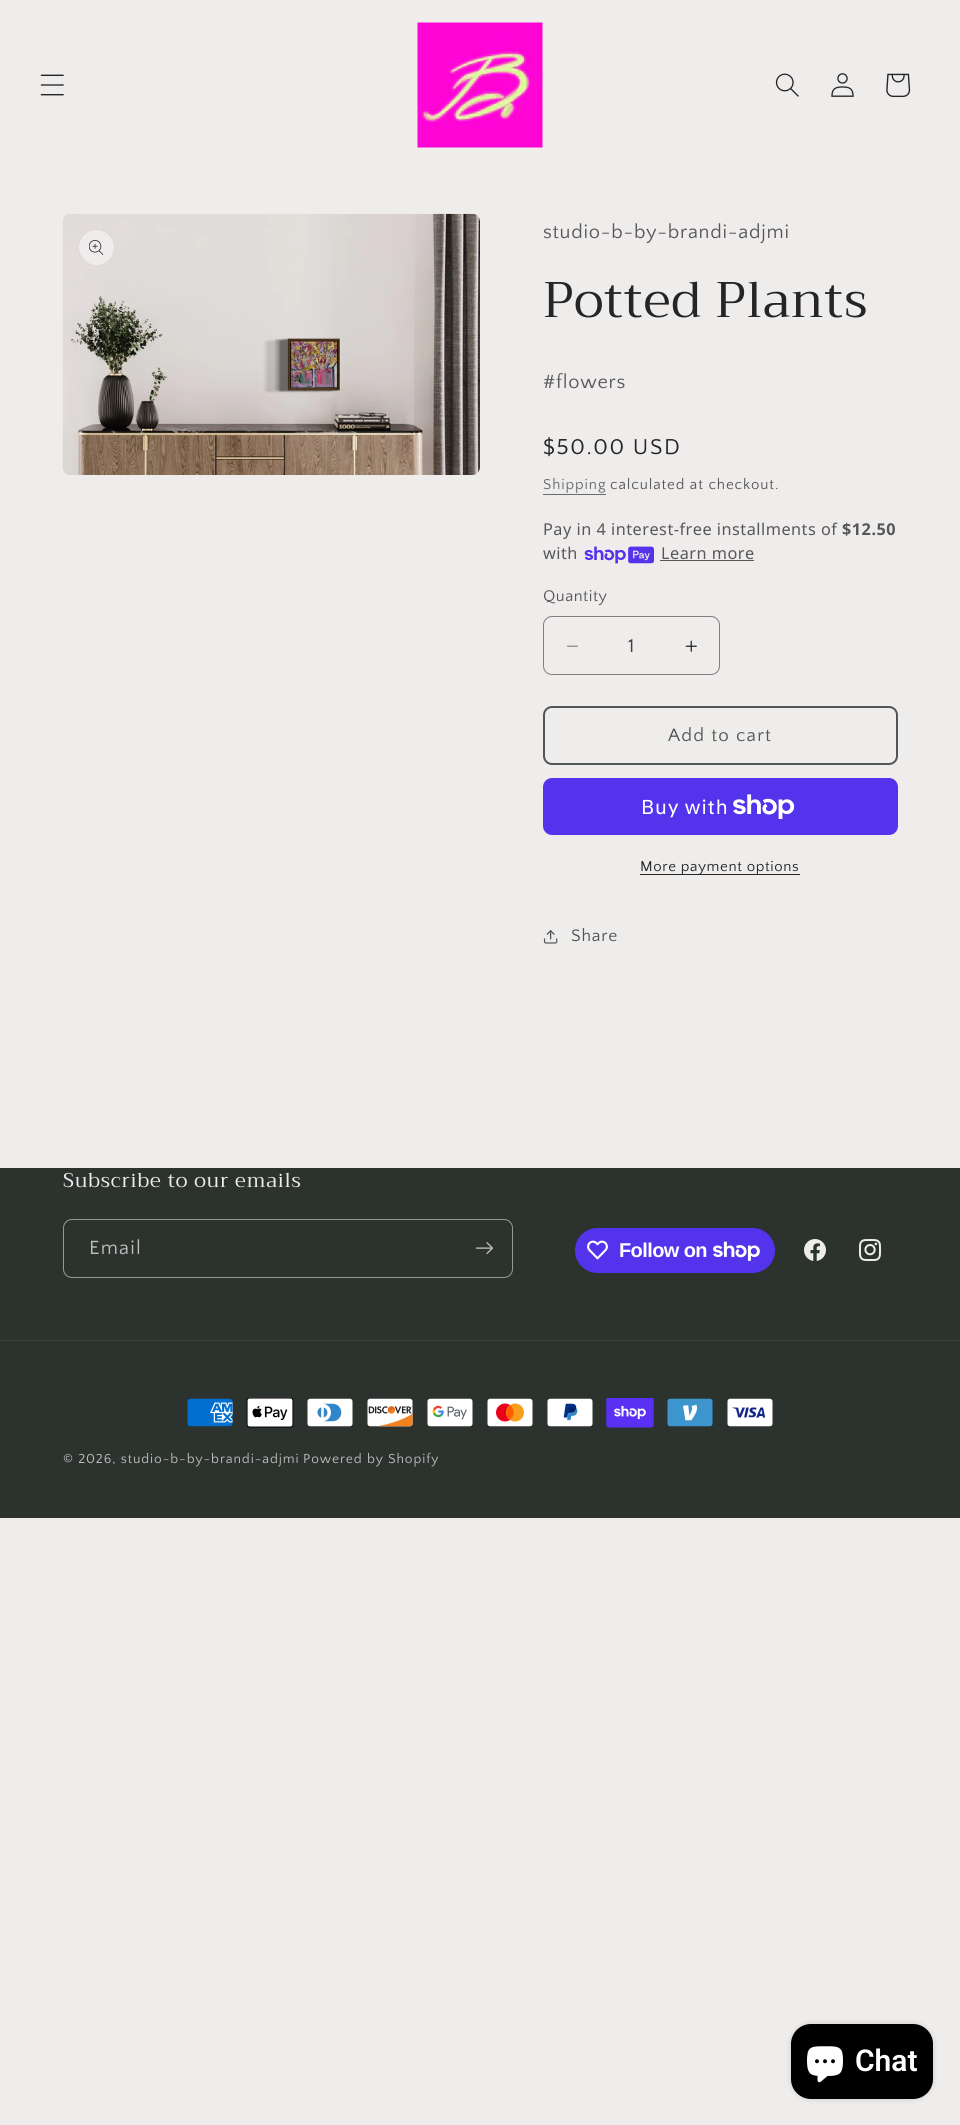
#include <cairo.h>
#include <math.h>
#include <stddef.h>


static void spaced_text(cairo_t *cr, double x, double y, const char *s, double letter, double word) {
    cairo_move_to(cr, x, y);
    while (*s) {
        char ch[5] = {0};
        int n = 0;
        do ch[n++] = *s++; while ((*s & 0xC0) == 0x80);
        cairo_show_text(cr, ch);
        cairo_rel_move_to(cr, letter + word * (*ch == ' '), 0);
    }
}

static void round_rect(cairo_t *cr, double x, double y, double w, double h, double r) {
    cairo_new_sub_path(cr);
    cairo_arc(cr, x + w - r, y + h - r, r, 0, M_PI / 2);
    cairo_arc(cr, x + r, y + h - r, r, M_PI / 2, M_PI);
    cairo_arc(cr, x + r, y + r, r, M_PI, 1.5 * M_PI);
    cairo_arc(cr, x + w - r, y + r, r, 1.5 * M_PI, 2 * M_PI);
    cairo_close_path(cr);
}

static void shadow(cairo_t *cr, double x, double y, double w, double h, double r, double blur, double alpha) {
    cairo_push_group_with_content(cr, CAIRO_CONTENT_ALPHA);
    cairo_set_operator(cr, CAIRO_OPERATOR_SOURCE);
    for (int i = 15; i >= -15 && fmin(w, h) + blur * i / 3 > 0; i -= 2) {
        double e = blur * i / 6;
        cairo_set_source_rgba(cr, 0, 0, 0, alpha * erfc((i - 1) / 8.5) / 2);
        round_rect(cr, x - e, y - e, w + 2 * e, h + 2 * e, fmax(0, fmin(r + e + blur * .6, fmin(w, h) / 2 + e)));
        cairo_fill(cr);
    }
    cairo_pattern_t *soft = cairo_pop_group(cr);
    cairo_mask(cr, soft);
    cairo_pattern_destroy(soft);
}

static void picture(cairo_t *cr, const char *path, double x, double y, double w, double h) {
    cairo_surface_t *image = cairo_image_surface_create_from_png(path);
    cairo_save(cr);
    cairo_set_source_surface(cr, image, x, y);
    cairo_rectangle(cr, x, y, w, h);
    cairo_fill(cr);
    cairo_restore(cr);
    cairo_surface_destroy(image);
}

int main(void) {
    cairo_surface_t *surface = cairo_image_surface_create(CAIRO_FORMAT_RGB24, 960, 2125);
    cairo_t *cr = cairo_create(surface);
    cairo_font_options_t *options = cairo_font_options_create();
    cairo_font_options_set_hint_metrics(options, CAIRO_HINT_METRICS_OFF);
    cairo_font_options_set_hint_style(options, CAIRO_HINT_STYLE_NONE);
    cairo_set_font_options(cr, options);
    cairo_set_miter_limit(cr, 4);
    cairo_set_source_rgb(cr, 0.937, 0.925, 0.925);
    cairo_paint(cr);
    picture(cr, "img1.png", 40, 74, 24, 22);
    picture(cr, "img2.png", 417, 22, 126, 126);
    picture(cr, "img3.png", 775, 73, 24, 24);
    picture(cr, "img4.png", 831, 73, 23, 24);
    picture(cr, "img5.png", 886, 73, 25, 24);
    picture(cr, "img6.png", 62, 213, 418, 262);
    cairo_set_source_rgb(cr, 0.937, 0.925, 0.925);
    cairo_arc(cr, 96.5, 247.5, 18.5, 0, 2 * M_PI);
    cairo_fill(cr);
    cairo_arc(cr, 96.5, 247.5, 18, 0, 2 * M_PI);
    cairo_set_source_rgba(cr, 0.145, 0.145, 0.145, 0.1);
    cairo_set_line_width(cr, 1);
    cairo_stroke(cr);
    picture(cr, "img7.png", 89, 240, 15, 15);
    cairo_select_font_face(cr, "Quattrocento Sans", CAIRO_FONT_SLANT_NORMAL, CAIRO_FONT_WEIGHT_NORMAL);
    cairo_set_font_size(cr, 20);
    cairo_set_source_rgb(cr, 0.345, 0.341, 0.341);
    spaced_text(cr, 543, 238, "studio-b-by-brandi-adjmi", 0.75, 0);
    cairo_select_font_face(cr, "Trirong", CAIRO_FONT_SLANT_NORMAL, CAIRO_FONT_WEIGHT_NORMAL);
    cairo_set_font_size(cr, 50);
    cairo_set_source_rgb(cr, 0.145, 0.145, 0.145);
    spaced_text(cr, 543, 317, "Potted Plants", 0.75, 0);
    cairo_select_font_face(cr, "Quattrocento Sans", CAIRO_FONT_SLANT_NORMAL, CAIRO_FONT_WEIGHT_NORMAL);
    cairo_set_font_size(cr, 20);
    cairo_set_source_rgb(cr, 0.345, 0.341, 0.341);
    spaced_text(cr, 543, 388, "#flowers", 0.75, 0);
    cairo_set_font_size(cr, 22.5);
    cairo_set_source_rgb(cr, 0.145, 0.145, 0.145);
    spaced_text(cr, 543, 454, "$50.00 USD", 1.6, 0);
    cairo_set_font_size(cr, 15);
    cairo_set_source_rgb(cr, 0.408, 0.427, 0.424);
    spaced_text(cr, 543, 489, "Shipping", 0.9, 0);
    cairo_rectangle(cr, 543, 494, 63, 1);
    cairo_fill(cr);
    cairo_set_source_rgb(cr, 0.345, 0.341, 0.341);
    spaced_text(cr, 610, 489, "calculated at checkout.", 0.9, 0);
    cairo_select_font_face(cr, "Noto Sans", CAIRO_FONT_SLANT_NORMAL, CAIRO_FONT_WEIGHT_NORMAL);
    cairo_set_font_size(cr, 16.25);
    spaced_text(cr, 543, 535, "Pay in 4 interest-free installments of", 0.5, 0);
    cairo_select_font_face(cr, "Noto Sans", CAIRO_FONT_SLANT_NORMAL, CAIRO_FONT_WEIGHT_BOLD);
    spaced_text(cr, 842, 535, "$12.50", 0.5, 0);
    cairo_select_font_face(cr, "Noto Sans", CAIRO_FONT_SLANT_NORMAL, CAIRO_FONT_WEIGHT_NORMAL);
    spaced_text(cr, 543, 559, "with", 0.5, 0);
    picture(cr, "img8.png", 584, 546, 70, 18);
    spaced_text(cr, 661, 559, "Learn more", 0.5, 0);
    cairo_rectangle(cr, 660, 560, 94, 1);
    cairo_fill(cr);
    cairo_select_font_face(cr, "Quattrocento Sans", CAIRO_FONT_SLANT_NORMAL, CAIRO_FONT_WEIGHT_NORMAL);
    spaced_text(cr, 543, 601, "Quantity", 0.5, 0);
    picture(cr, "img9.png", 567, 645, 11, 2);
    picture(cr, "img10.png", 685, 640, 12, 12);
    round_rect(cr, 543.5, 616.5, 176, 58, 8.5);
    cairo_set_source_rgb(cr, 0.502, 0.498, 0.498);
    cairo_stroke(cr);
    cairo_set_font_size(cr, 20);
    cairo_set_source_rgb(cr, 0.263, 0.263, 0.263);
    cairo_move_to(cr, 628, 652);
    cairo_show_text(cr, "1");
    round_rect(cr, 544, 707, 353, 57, 8);
    cairo_set_source_rgb(cr, 0.314, 0.337, 0.333);
    cairo_set_line_width(cr, 2);
    cairo_stroke(cr);
    cairo_set_font_size(cr, 18.75);
    spaced_text(cr, 668, 741, "Add to cart", 1.25, 0);
    cairo_set_source_rgb(cr, 0.329, 0.2, 0.922);
    round_rect(cr, 543, 778, 355, 57, 9);
    cairo_fill(cr);
    cairo_select_font_face(cr, "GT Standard", CAIRO_FONT_SLANT_NORMAL, CAIRO_FONT_WEIGHT_NORMAL);
    cairo_set_font_size(cr, 20);
    cairo_set_source_rgb(cr, 1, 1, 1);
    spaced_text(cr, 641, 814, "Buy with", 0.75, 0);
    picture(cr, "img11.png", 733, 794, 62, 25);
    cairo_set_source_rgb(cr, 0.145, 0.145, 0.145);
    cairo_rectangle(cr, 640, 874, 160, 1);
    cairo_fill(cr);
    cairo_select_font_face(cr, "Quattrocento Sans", CAIRO_FONT_SLANT_NORMAL, CAIRO_FONT_WEIGHT_NORMAL);
    cairo_set_font_size(cr, 15);
    spaced_text(cr, 640, 871, "More payment options", 0.6, 0);
    picture(cr, "img12.png", 543, 930, 15, 14);
    cairo_set_font_size(cr, 17.5);
    cairo_set_source_rgb(cr, 0.314, 0.337, 0.333);
    spaced_text(cr, 571, 941, "Share", 0.75, 0);
    cairo_set_source_rgb(cr, 0.173, 0.2, 0.184);
    cairo_rectangle(cr, 0, 1168, 960, 350);
    cairo_fill(cr);
    cairo_select_font_face(cr, "Trirong", CAIRO_FONT_SLANT_NORMAL, CAIRO_FONT_WEIGHT_NORMAL);
    cairo_set_font_size(cr, 20);
    cairo_set_source_rgb(cr, 0.937, 0.925, 0.925);
    spaced_text(cr, 63, 1187, "Subscribe to our emails", 0.75, 0);
    round_rect(cr, 63.5, 1219.5, 449, 58, 8.5);
    cairo_set_source_rgb(cr, 0.592, 0.6, 0.592);
    cairo_set_line_width(cr, 1);
    cairo_stroke(cr);
    cairo_select_font_face(cr, "Quattrocento Sans", CAIRO_FONT_SLANT_NORMAL, CAIRO_FONT_WEIGHT_NORMAL);
    cairo_set_source_rgb(cr, 0.745, 0.745, 0.741);
    spaced_text(cr, 89, 1254, "Email", 1.25, 0);
    picture(cr, "img13.png", 475, 1242, 18, 13);
    cairo_set_source_rgb(cr, 0.329, 0.2, 0.922);
    round_rect(cr, 575, 1228, 200, 45, 22.5);
    cairo_fill(cr);
    picture(cr, "img14.png", 587, 1240, 21, 20);
    cairo_select_font_face(cr, "Liberation Sans", CAIRO_FONT_SLANT_NORMAL, CAIRO_FONT_WEIGHT_BOLD);
    cairo_set_source_rgb(cr, 1, 1, 1);
    spaced_text(cr, 619, 1257, "Follow on", -0.6, 0);
    picture(cr, "img15.png", 713, 1241, 47, 20);
    picture(cr, "img16.png", 804, 1239, 22, 22);
    picture(cr, "img17.png", 859, 1239, 22, 22);
    cairo_set_source_rgb(cr, 0.235, 0.259, 0.243);
    cairo_rectangle(cr, 0, 1340, 960, 1);
    cairo_fill(cr);
    picture(cr, "img18.png", 187, 1398, 46, 29);
    picture(cr, "img19.png", 246, 1398, 48, 30);
    picture(cr, "img20.png", 307, 1398, 46, 29);
    picture(cr, "img21.png", 367, 1398, 46, 29);
    picture(cr, "img22.png", 427, 1398, 46, 29);
    picture(cr, "img23.png", 487, 1398, 46, 29);
    picture(cr, "img24.png", 547, 1398, 46, 29);
    picture(cr, "img25.png", 606, 1398, 48, 30);
    picture(cr, "img26.png", 667, 1398, 46, 29);
    picture(cr, "img27.png", 727, 1398, 46, 29);
    cairo_select_font_face(cr, "Quattrocento Sans", CAIRO_FONT_SLANT_NORMAL, CAIRO_FONT_WEIGHT_NORMAL);
    cairo_set_font_size(cr, 13.75);
    cairo_set_source_rgb(cr, 0.745, 0.745, 0.741);
    spaced_text(cr, 63, 1463, "© 2026, studio-b-by-brandi-adjmi", 0.9, 0);
    spaced_text(cr, 303, 1463, "Powered by Shopify", 0.9, 0);
    cairo_set_source_rgb(cr, 0, 0, 0);
    shadow(cr, 791, 2024, 142, 75, 20, 3, 0.15);
    cairo_set_source_rgb(cr, 0, 0, 0);
    round_rect(cr, 791, 2024, 142, 75, 20);
    cairo_fill(cr);
    picture(cr, "img28.png", 807, 2046, 36, 37);
    cairo_select_font_face(cr, "Roboto SemiBold", CAIRO_FONT_SLANT_NORMAL, CAIRO_FONT_WEIGHT_NORMAL);
    cairo_set_font_size(cr, 30);
    cairo_set_source_rgb(cr, 1, 1, 1);
    cairo_move_to(cr, 855, 2071);
    cairo_show_text(cr, "Chat");
    cairo_surface_write_to_png(surface, "page.png");
    cairo_font_options_destroy(options);
    cairo_destroy(cr);
    cairo_surface_destroy(surface);
    return 0;
}
